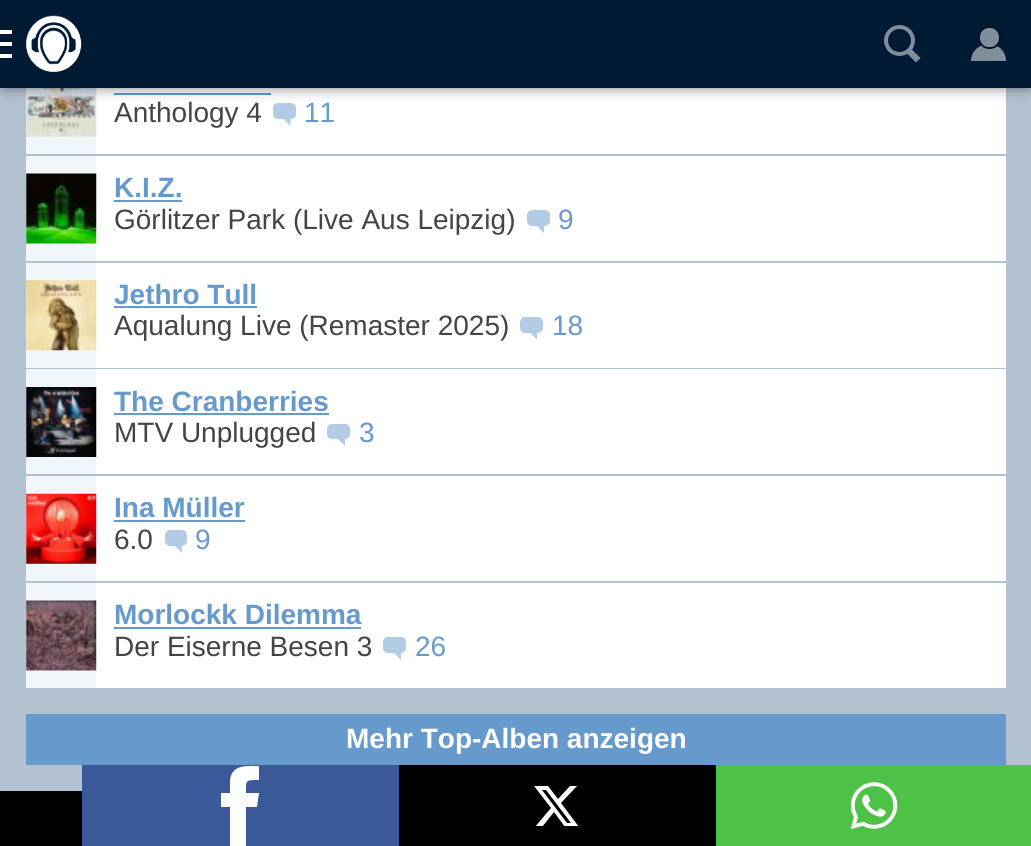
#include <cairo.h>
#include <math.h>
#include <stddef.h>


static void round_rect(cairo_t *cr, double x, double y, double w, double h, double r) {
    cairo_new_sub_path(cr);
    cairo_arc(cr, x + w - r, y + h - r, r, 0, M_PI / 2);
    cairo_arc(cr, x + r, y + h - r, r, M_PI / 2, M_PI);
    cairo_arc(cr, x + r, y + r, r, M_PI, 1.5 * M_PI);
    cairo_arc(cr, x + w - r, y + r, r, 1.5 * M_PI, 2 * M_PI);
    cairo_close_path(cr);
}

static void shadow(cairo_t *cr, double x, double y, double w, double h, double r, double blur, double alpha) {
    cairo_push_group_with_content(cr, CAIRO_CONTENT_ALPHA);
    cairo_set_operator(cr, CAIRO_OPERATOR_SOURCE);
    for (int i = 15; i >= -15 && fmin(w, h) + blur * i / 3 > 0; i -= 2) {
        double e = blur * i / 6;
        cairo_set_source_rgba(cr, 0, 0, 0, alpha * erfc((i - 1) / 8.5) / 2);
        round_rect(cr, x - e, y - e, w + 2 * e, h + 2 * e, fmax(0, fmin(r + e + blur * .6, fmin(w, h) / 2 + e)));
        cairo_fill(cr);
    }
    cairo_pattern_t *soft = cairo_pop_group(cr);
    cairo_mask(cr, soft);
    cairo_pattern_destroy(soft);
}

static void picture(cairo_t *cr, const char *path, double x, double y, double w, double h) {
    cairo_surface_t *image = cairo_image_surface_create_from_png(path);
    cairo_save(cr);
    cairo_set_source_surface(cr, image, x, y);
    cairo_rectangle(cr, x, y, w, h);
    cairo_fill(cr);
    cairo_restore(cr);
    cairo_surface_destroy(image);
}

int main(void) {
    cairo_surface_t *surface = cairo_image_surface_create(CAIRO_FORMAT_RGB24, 1031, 846);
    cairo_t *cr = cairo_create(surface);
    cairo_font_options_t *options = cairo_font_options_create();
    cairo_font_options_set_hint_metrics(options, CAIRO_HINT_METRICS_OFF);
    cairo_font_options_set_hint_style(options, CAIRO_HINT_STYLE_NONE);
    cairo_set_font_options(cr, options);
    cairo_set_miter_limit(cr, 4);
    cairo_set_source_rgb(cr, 0.702, 0.761, 0.82);
    cairo_paint(cr);
    cairo_set_source_rgb(cr, 1, 1, 1);
    cairo_rectangle(cr, 96, 88, 910, 66);
    cairo_fill(cr);
    cairo_set_source_rgb(cr, 0.941, 0.961, 0.98);
    cairo_rectangle(cr, 26, 88, 70, 66);
    cairo_fill(cr);
    picture(cr, "img2.png", 26, 88, 71, 49);
    cairo_set_source_rgb(cr, 0.4, 0.6, 0.8);
    cairo_rectangle(cr, 114, 93, 157, 2);
    cairo_fill(cr);
    cairo_set_source_rgb(cr, 0.702, 0.8, 0.902);
    round_rect(cr, 273, 103, 23, 16, 5);
    cairo_fill(cr);
    cairo_set_source_rgb(cr, 0, 0, 0);
    shadow(cr, 5, 5, 1022, 77, 0, 9, 1);
    cairo_set_source_rgb(cr, 0, 0.102, 0.204);
    cairo_rectangle(cr, 0, 0, 1031, 88);
    cairo_fill(cr);
    picture(cr, "img1.png", 26, 15, 56, 57);
    cairo_set_source_rgb(cr, 1, 1, 1);
    cairo_rectangle(cr, 0, 30, 12, 4);
    cairo_fill(cr);
    cairo_rectangle(cr, 0, 54, 12, 4);
    cairo_fill(cr);
    cairo_rectangle(cr, 0, 42, 12, 4);
    cairo_fill(cr);
    cairo_set_source_rgb(cr, 0.502, 0.553, 0.604);
    cairo_new_path(cr);
    cairo_move_to(cr, 920.5, 58);
    cairo_line_to(cr, 916, 62.5);
    cairo_line_to(cr, 906, 52.5);
    cairo_line_to(cr, 910.5, 48);
    cairo_close_path(cr);
    cairo_fill(cr);
    cairo_arc(cr, 899.5, 40.5, 13.5, 0, 2 * M_PI);
    cairo_set_line_width(cr, 4);
    cairo_stroke(cr);
    cairo_set_fill_rule(cr, CAIRO_FILL_RULE_EVEN_ODD);
    cairo_new_path(cr);
    cairo_move_to(cr, 989, 44);
    cairo_curve_to(cr, 998.5, 44, 1006, 51.5, 1006, 61);
    cairo_line_to(cr, 971, 61);
    cairo_curve_to(cr, 971, 51.5, 979, 44, 989, 44);
    cairo_close_path(cr);
    cairo_move_to(cr, 989, 61);
    cairo_close_path(cr);
    cairo_fill(cr);
    round_rect(cr, 979, 27, 21, 21, 10);
    cairo_set_source_rgb(cr, 0, 0.078, 0.153);
    cairo_set_line_width(cr, 2);
    cairo_stroke(cr);
    cairo_set_source_rgb(cr, 0.502, 0.553, 0.604);
    round_rect(cr, 980, 28, 19, 19, 9);
    cairo_fill(cr);
    cairo_select_font_face(cr, "Liberation Sans", CAIRO_FONT_SLANT_NORMAL, CAIRO_FONT_WEIGHT_NORMAL);
    cairo_set_font_size(cr, 28);
    cairo_set_source_rgb(cr, 0.267, 0.267, 0.267);
    cairo_move_to(cr, 114, 122);
    cairo_show_text(cr, "Anthology 4");
    cairo_set_source_rgb(cr, 0.4, 0.6, 0.8);
    cairo_move_to(cr, 304, 122);
    cairo_show_text(cr, "11");
    cairo_set_source_rgb(cr, 0.702, 0.8, 0.902);
    cairo_set_fill_rule(cr, CAIRO_FILL_RULE_WINDING);
    cairo_new_path(cr);
    cairo_move_to(cr, 290.5, 119);
    cairo_line_to(cr, 290.5, 126);
    cairo_line_to(cr, 283.5, 119);
    cairo_close_path(cr);
    cairo_fill(cr);
    cairo_set_source_rgb(cr, 1, 1, 1);
    cairo_rectangle(cr, 96, 156, 910, 105);
    cairo_fill(cr);
    cairo_set_source_rgb(cr, 0.941, 0.961, 0.98);
    cairo_rectangle(cr, 26, 156, 70, 105);
    cairo_fill(cr);
    picture(cr, "img3.png", 26, 173, 71, 71);
    cairo_select_font_face(cr, "Liberation Sans", CAIRO_FONT_SLANT_NORMAL, CAIRO_FONT_WEIGHT_BOLD);
    cairo_set_source_rgb(cr, 0.4, 0.6, 0.8);
    cairo_move_to(cr, 114, 197);
    cairo_show_text(cr, "K.I.Z.");
    cairo_rectangle(cr, 114, 200, 68, 2);
    cairo_fill(cr);
    cairo_select_font_face(cr, "Liberation Sans", CAIRO_FONT_SLANT_NORMAL, CAIRO_FONT_WEIGHT_NORMAL);
    cairo_set_source_rgb(cr, 0.267, 0.267, 0.267);
    cairo_move_to(cr, 114, 229);
    cairo_show_text(cr, "Görlitzer Park (Live Aus Leipzig)");
    cairo_set_source_rgb(cr, 0.702, 0.8, 0.902);
    round_rect(cr, 527, 210, 23, 16, 5);
    cairo_fill(cr);
    cairo_set_source_rgb(cr, 0.4, 0.6, 0.8);
    cairo_move_to(cr, 558, 229);
    cairo_show_text(cr, "9");
    cairo_set_source_rgb(cr, 0.702, 0.8, 0.902);
    cairo_new_path(cr);
    cairo_move_to(cr, 544, 226);
    cairo_line_to(cr, 544, 233);
    cairo_line_to(cr, 537, 226);
    cairo_close_path(cr);
    cairo_fill(cr);
    cairo_set_source_rgb(cr, 1, 1, 1);
    cairo_rectangle(cr, 96, 263, 910, 105);
    cairo_fill(cr);
    cairo_set_source_rgb(cr, 0.941, 0.961, 0.98);
    cairo_rectangle(cr, 26, 263, 70, 105);
    cairo_fill(cr);
    picture(cr, "img4.png", 26, 280, 71, 71);
    cairo_select_font_face(cr, "Liberation Sans", CAIRO_FONT_SLANT_NORMAL, CAIRO_FONT_WEIGHT_BOLD);
    cairo_set_source_rgb(cr, 0.4, 0.6, 0.8);
    cairo_move_to(cr, 114, 304);
    cairo_show_text(cr, "Jethro Tull");
    cairo_rectangle(cr, 114, 306, 143, 2);
    cairo_fill(cr);
    cairo_select_font_face(cr, "Liberation Sans", CAIRO_FONT_SLANT_NORMAL, CAIRO_FONT_WEIGHT_NORMAL);
    cairo_set_source_rgb(cr, 0.267, 0.267, 0.267);
    cairo_move_to(cr, 114, 335);
    cairo_show_text(cr, "Aqualung Live (Remaster 2025)");
    cairo_set_source_rgb(cr, 0.702, 0.8, 0.902);
    round_rect(cr, 520, 317, 23, 16, 5);
    cairo_fill(cr);
    cairo_set_source_rgb(cr, 0.4, 0.6, 0.8);
    cairo_move_to(cr, 552, 335);
    cairo_show_text(cr, "18");
    cairo_set_source_rgb(cr, 0.702, 0.8, 0.902);
    cairo_new_path(cr);
    cairo_move_to(cr, 537, 332.5);
    cairo_line_to(cr, 537, 339.5);
    cairo_line_to(cr, 530, 332.5);
    cairo_close_path(cr);
    cairo_fill(cr);
    cairo_set_source_rgb(cr, 1, 1, 1);
    cairo_rectangle(cr, 96, 369, 910, 105);
    cairo_fill(cr);
    cairo_set_source_rgb(cr, 0.941, 0.961, 0.98);
    cairo_rectangle(cr, 26, 369, 70, 105);
    cairo_fill(cr);
    picture(cr, "img5.png", 26, 387, 71, 70);
    cairo_select_font_face(cr, "Liberation Sans", CAIRO_FONT_SLANT_NORMAL, CAIRO_FONT_WEIGHT_BOLD);
    cairo_set_source_rgb(cr, 0.4, 0.6, 0.8);
    cairo_move_to(cr, 114, 411);
    cairo_show_text(cr, "The Cranberries");
    cairo_rectangle(cr, 114, 413, 215, 2);
    cairo_fill(cr);
    cairo_select_font_face(cr, "Liberation Sans", CAIRO_FONT_SLANT_NORMAL, CAIRO_FONT_WEIGHT_NORMAL);
    cairo_set_source_rgb(cr, 0.267, 0.267, 0.267);
    cairo_move_to(cr, 114, 442);
    cairo_show_text(cr, "MTV Unplugged");
    cairo_set_source_rgb(cr, 0.702, 0.8, 0.902);
    round_rect(cr, 327, 424, 23, 15, 5);
    cairo_fill(cr);
    cairo_set_source_rgb(cr, 0.4, 0.6, 0.8);
    cairo_move_to(cr, 359, 442);
    cairo_show_text(cr, "3");
    cairo_set_source_rgb(cr, 0.702, 0.8, 0.902);
    cairo_new_path(cr);
    cairo_move_to(cr, 345, 439);
    cairo_line_to(cr, 345, 446);
    cairo_line_to(cr, 338, 439);
    cairo_close_path(cr);
    cairo_fill(cr);
    cairo_set_source_rgb(cr, 1, 1, 1);
    cairo_rectangle(cr, 96, 476, 910, 105);
    cairo_fill(cr);
    cairo_set_source_rgb(cr, 0.941, 0.961, 0.98);
    cairo_rectangle(cr, 26, 476, 70, 105);
    cairo_fill(cr);
    picture(cr, "img6.png", 26, 493, 71, 71);
    cairo_select_font_face(cr, "Liberation Sans", CAIRO_FONT_SLANT_NORMAL, CAIRO_FONT_WEIGHT_BOLD);
    cairo_set_source_rgb(cr, 0.4, 0.6, 0.8);
    cairo_move_to(cr, 114, 517);
    cairo_show_text(cr, "Ina Müller");
    cairo_rectangle(cr, 114, 520, 131, 2);
    cairo_fill(cr);
    cairo_select_font_face(cr, "Liberation Sans", CAIRO_FONT_SLANT_NORMAL, CAIRO_FONT_WEIGHT_NORMAL);
    cairo_set_source_rgb(cr, 0.267, 0.267, 0.267);
    cairo_move_to(cr, 114, 549);
    cairo_show_text(cr, "6.0");
    cairo_set_source_rgb(cr, 0.702, 0.8, 0.902);
    round_rect(cr, 165, 530, 22, 16, 5);
    cairo_fill(cr);
    cairo_set_source_rgb(cr, 0.4, 0.6, 0.8);
    cairo_move_to(cr, 195, 549);
    cairo_show_text(cr, "9");
    cairo_set_source_rgb(cr, 0.702, 0.8, 0.902);
    cairo_new_path(cr);
    cairo_move_to(cr, 182, 546);
    cairo_line_to(cr, 182, 553);
    cairo_line_to(cr, 175, 546);
    cairo_close_path(cr);
    cairo_fill(cr);
    cairo_set_source_rgb(cr, 1, 1, 1);
    cairo_rectangle(cr, 96, 583, 910, 105);
    cairo_fill(cr);
    cairo_set_source_rgb(cr, 0.941, 0.961, 0.98);
    cairo_rectangle(cr, 26, 583, 70, 105);
    cairo_fill(cr);
    picture(cr, "img7.png", 26, 600, 71, 71);
    cairo_select_font_face(cr, "Liberation Sans", CAIRO_FONT_SLANT_NORMAL, CAIRO_FONT_WEIGHT_BOLD);
    cairo_set_source_rgb(cr, 0.4, 0.6, 0.8);
    cairo_move_to(cr, 114, 624);
    cairo_show_text(cr, "Morlockk Dilemma");
    cairo_rectangle(cr, 114, 627, 247, 2);
    cairo_fill(cr);
    cairo_select_font_face(cr, "Liberation Sans", CAIRO_FONT_SLANT_NORMAL, CAIRO_FONT_WEIGHT_NORMAL);
    cairo_set_source_rgb(cr, 0.267, 0.267, 0.267);
    cairo_move_to(cr, 114, 656);
    cairo_show_text(cr, "Der Eiserne Besen 3");
    cairo_set_source_rgb(cr, 0.702, 0.8, 0.902);
    round_rect(cr, 383, 637, 23, 16, 5);
    cairo_fill(cr);
    cairo_set_source_rgb(cr, 0.4, 0.6, 0.8);
    cairo_move_to(cr, 415, 656);
    cairo_show_text(cr, "26");
    cairo_set_source_rgb(cr, 0.702, 0.8, 0.902);
    cairo_new_path(cr);
    cairo_move_to(cr, 401, 653);
    cairo_line_to(cr, 401, 660);
    cairo_line_to(cr, 394, 653);
    cairo_close_path(cr);
    cairo_fill(cr);
    cairo_set_source_rgb(cr, 0.4, 0.6, 0.8);
    cairo_rectangle(cr, 26, 714, 980, 51);
    cairo_fill(cr);
    cairo_select_font_face(cr, "Liberation Sans", CAIRO_FONT_SLANT_NORMAL, CAIRO_FONT_WEIGHT_BOLD);
    cairo_set_source_rgb(cr, 1, 1, 1);
    cairo_move_to(cr, 346, 748);
    cairo_show_text(cr, "Mehr Top-Alben anzeigen");
    cairo_set_source_rgb(cr, 0.231, 0.349, 0.596);
    cairo_rectangle(cr, 82, 765, 317, 81);
    cairo_fill(cr);
    cairo_set_source_rgb(cr, 1, 1, 1);
    cairo_set_fill_rule(cr, CAIRO_FILL_RULE_EVEN_ODD);
    cairo_new_path(cr);
    cairo_move_to(cr, 246, 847);
    cairo_line_to(cr, 246, 807);
    cairo_line_to(cr, 257, 807);
    cairo_line_to(cr, 259, 793);
    cairo_line_to(cr, 246, 793);
    cairo_curve_to(cr, 246, 780, 245, 780, 259, 780);
    cairo_line_to(cr, 259, 766);
    cairo_curve_to(cr, 247, 766, 232, 764, 230, 780);
    cairo_line_to(cr, 230, 793);
    cairo_line_to(cr, 221, 793);
    cairo_line_to(cr, 221, 807);
    cairo_line_to(cr, 230, 807);
    cairo_line_to(cr, 230, 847);
    cairo_close_path(cr);
    cairo_fill(cr);
    cairo_set_source_rgb(cr, 0, 0, 0);
    cairo_rectangle(cr, 399, 765, 317, 81);
    cairo_fill(cr);
    cairo_save(cr);
    cairo_set_fill_rule(cr, CAIRO_FILL_RULE_WINDING);
    cairo_rectangle(cr, 534, 786, 47, 40);
    cairo_clip(cr);
    cairo_set_source_rgb(cr, 1, 1, 1);
    cairo_new_path(cr);
    cairo_move_to(cr, 570, 786);
    cairo_line_to(cr, 577, 786);
    cairo_line_to(cr, 561, 803);
    cairo_line_to(cr, 579, 827);
    cairo_line_to(cr, 565, 827);
    cairo_line_to(cr, 554, 812);
    cairo_line_to(cr, 542, 827);
    cairo_line_to(cr, 535, 827);
    cairo_line_to(cr, 551, 808);
    cairo_line_to(cr, 534, 786);
    cairo_line_to(cr, 548, 786);
    cairo_line_to(cr, 558, 799);
    cairo_close_path(cr);
    cairo_move_to(cr, 567, 823);
    cairo_line_to(cr, 571, 823);
    cairo_line_to(cr, 546, 790);
    cairo_line_to(cr, 542, 790);
    cairo_close_path(cr);
    cairo_fill(cr);
    cairo_restore(cr);
    cairo_set_source_rgb(cr, 0.302, 0.761, 0.278);
    cairo_rectangle(cr, 716, 765, 315, 81);
    cairo_fill(cr);
    picture(cr, "img8.png", 851, 782, 47, 47);
    cairo_set_source_rgb(cr, 0, 0, 0);
    cairo_rectangle(cr, 0, 791, 82, 55);
    cairo_fill(cr);
    cairo_surface_write_to_png(surface, "page.png");
    cairo_font_options_destroy(options);
    cairo_destroy(cr);
    cairo_surface_destroy(surface);
    return 0;
}
